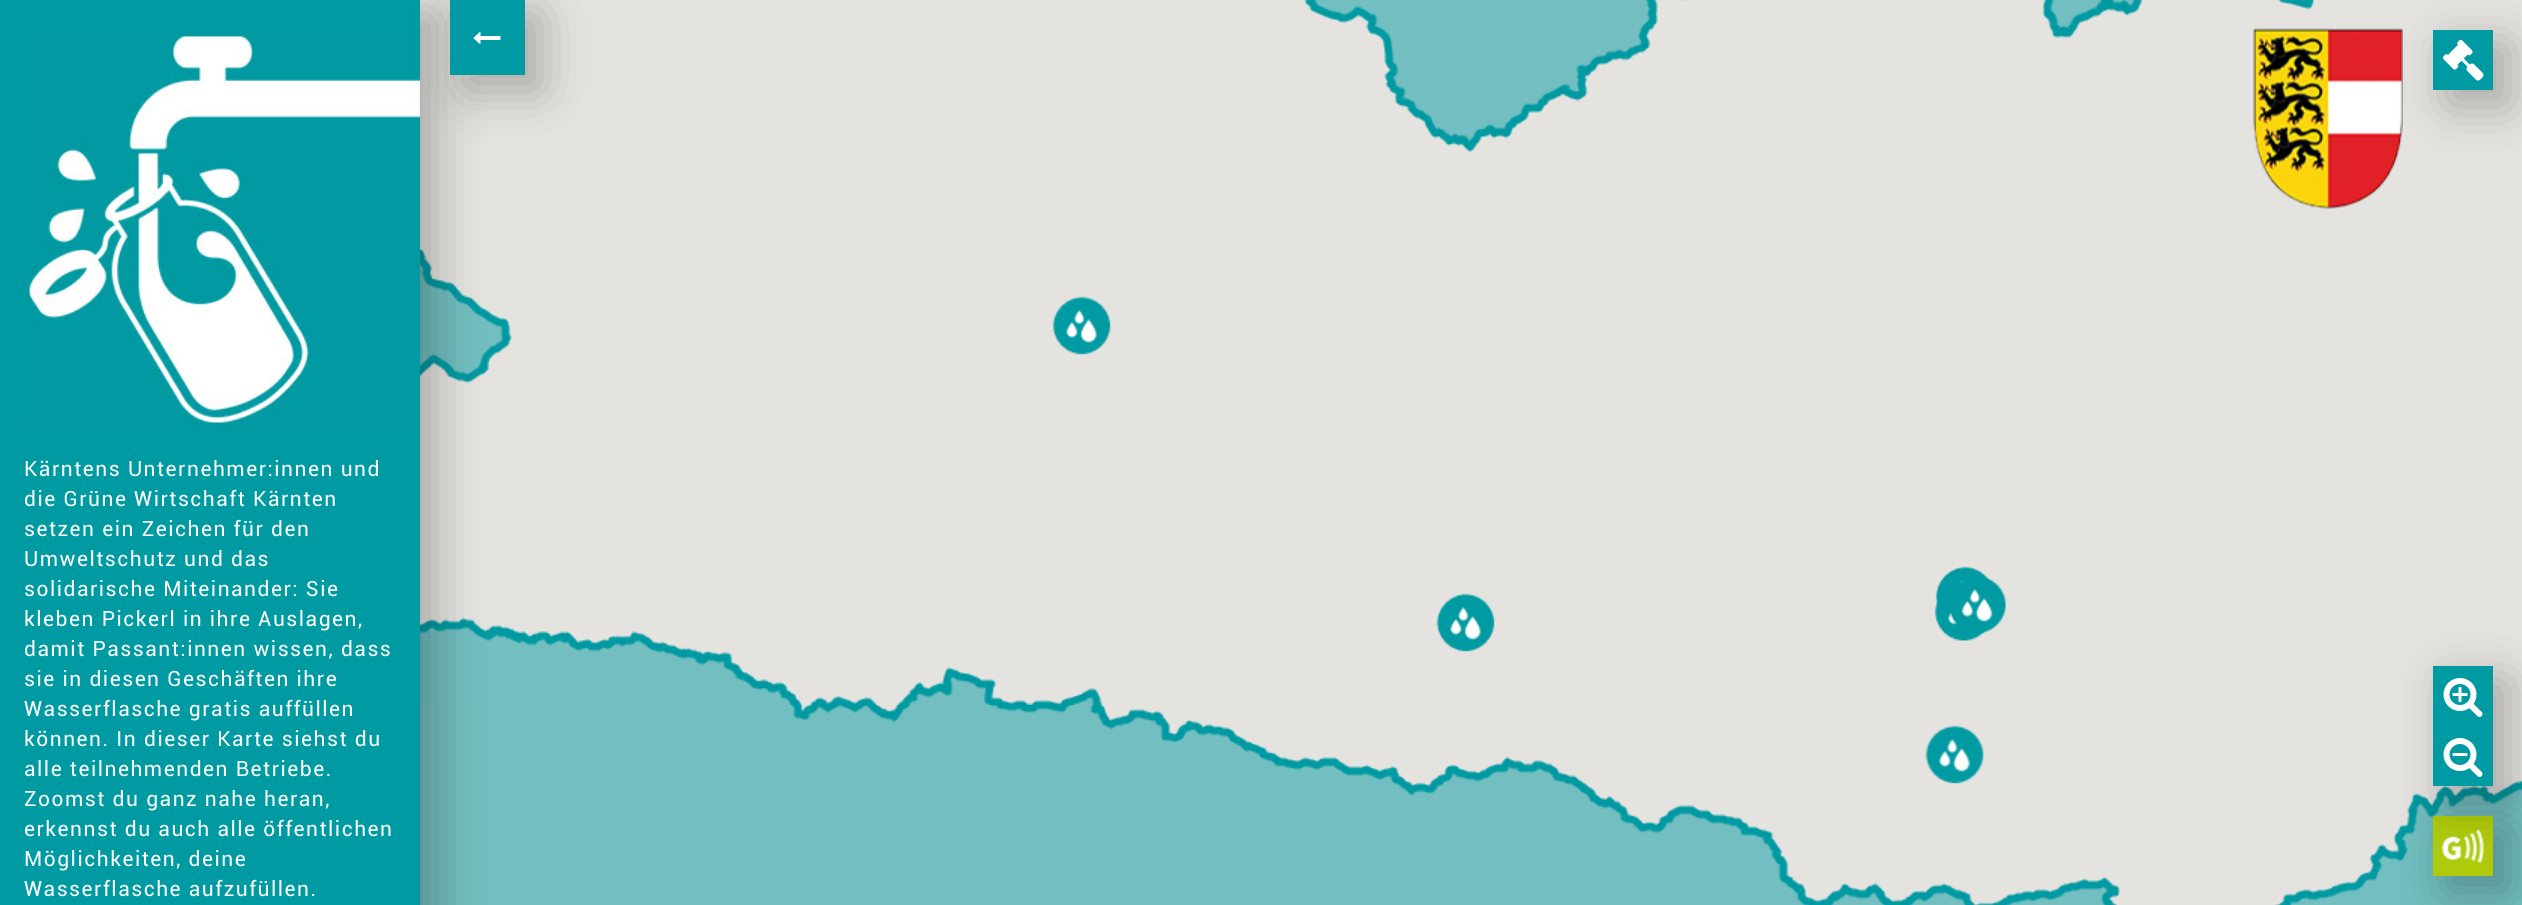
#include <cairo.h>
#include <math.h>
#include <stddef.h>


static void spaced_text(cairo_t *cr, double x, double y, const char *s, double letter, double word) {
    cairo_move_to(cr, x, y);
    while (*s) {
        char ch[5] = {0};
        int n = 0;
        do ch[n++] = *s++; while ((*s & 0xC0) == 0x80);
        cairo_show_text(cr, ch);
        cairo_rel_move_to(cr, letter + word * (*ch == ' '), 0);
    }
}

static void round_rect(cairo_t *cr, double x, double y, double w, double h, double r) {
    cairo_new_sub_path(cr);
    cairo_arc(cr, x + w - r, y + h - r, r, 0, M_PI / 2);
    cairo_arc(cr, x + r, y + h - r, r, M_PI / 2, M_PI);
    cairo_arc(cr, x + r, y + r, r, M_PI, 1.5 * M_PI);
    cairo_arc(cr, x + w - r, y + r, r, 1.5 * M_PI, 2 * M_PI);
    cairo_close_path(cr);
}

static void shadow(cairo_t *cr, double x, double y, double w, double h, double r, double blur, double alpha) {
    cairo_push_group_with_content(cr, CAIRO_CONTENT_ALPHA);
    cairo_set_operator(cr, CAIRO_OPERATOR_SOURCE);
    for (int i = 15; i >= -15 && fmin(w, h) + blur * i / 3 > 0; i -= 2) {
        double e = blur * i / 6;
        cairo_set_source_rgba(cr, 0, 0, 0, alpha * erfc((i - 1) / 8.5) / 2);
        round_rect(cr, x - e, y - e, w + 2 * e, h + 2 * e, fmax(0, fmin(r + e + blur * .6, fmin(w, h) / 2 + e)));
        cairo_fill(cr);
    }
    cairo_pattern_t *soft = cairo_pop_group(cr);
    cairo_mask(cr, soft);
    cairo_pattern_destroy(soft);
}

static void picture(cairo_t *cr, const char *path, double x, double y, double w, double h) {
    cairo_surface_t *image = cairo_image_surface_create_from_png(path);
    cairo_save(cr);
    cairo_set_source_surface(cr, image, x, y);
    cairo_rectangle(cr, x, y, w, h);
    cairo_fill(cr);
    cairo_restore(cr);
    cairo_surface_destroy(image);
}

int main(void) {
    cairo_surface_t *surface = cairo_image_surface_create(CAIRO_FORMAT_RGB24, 2522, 905);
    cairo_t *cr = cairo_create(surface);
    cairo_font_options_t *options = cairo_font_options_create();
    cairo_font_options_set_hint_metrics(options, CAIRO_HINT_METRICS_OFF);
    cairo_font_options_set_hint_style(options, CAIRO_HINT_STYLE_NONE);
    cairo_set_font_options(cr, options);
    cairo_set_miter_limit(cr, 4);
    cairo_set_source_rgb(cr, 0.898, 0.89, 0.875);
    cairo_paint(cr);
    picture(cr, "img6.png", 420, 248, 88, 73);
    picture(cr, "img7.png", 420, 321, 132, 384);
    cairo_set_source_rgb(cr, 0.451, 0.745, 0.753);
    cairo_rectangle(cr, 420, 705, 132, 200);
    cairo_fill(cr);
    cairo_set_source_rgb(cr, 0, 0, 0);
    shadow(cr, 15, 15, 420, 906, 0, 25, 0.27);
    cairo_set_source_rgb(cr, 0, 0.604, 0.635);
    cairo_rectangle(cr, 0, 0, 420, 905);
    cairo_fill(cr);
    picture(cr, "img24.png", 22, 32, 398, 398);
    cairo_set_source_rgb(cr, 0, 0, 0);
    shadow(cr, 465, 15, 75, 75, 0, 25, 0.27);
    cairo_set_source_rgb(cr, 0, 0.604, 0.635);
    cairo_rectangle(cr, 450, 0, 75, 75);
    cairo_fill(cr);
    picture(cr, "img1.png", 473, 32, 28, 12);
    picture(cr, "img2.png", 1304, 0, 16, 16);
    picture(cr, "img3.png", 1320, 0, 370, 152);
    picture(cr, "img4.png", 2042, 0, 46, 38);
    picture(cr, "img5.png", 2088, 0, 227, 21);
    picture(cr, "img8.png", 552, 631, 384, 74);
    picture(cr, "img9.png", 936, 667, 167, 38);
    picture(cr, "img10.png", 552, 705, 384, 200);
    picture(cr, "img11.png", 936, 705, 384, 200);
    picture(cr, "img12.png", 1320, 757, 384, 148);
    picture(cr, "img13.png", 1704, 809, 384, 96);
    picture(cr, "img14.png", 2088, 786, 384, 119);
    picture(cr, "img15.png", 2472, 779, 50, 126);
    picture(cr, "img16.png", 1052, 296, 59, 59);
    picture(cr, "img18.png", 1935, 568, 55, 37);
    picture(cr, "img17.png", 1936, 566, 55, 39);
    picture(cr, "img20.png", 1934, 583, 54, 58);
    picture(cr, "img19.png", 1950, 577, 56, 57);
    picture(cr, "img16.png", 1436, 593, 59, 59);
    picture(cr, "img21.png", 1925, 725, 59, 59);
    cairo_set_source_rgb(cr, 0, 0, 0);
    shadow(cr, 2448, 45, 60, 60, 0, 25, 0.27);
    picture(cr, "img22.png", 2253, 28, 150, 181);
    cairo_set_source_rgb(cr, 0, 0.604, 0.635);
    cairo_rectangle(cr, 2433, 30, 60, 60);
    cairo_fill(cr);
    picture(cr, "img23.png", 2443, 40, 41, 41);
    cairo_select_font_face(cr, "Roboto", CAIRO_FONT_SLANT_NORMAL, CAIRO_FONT_WEIGHT_NORMAL);
    cairo_set_font_size(cr, 21);
    cairo_set_source_rgb(cr, 1, 1, 1);
    spaced_text(cr, 24, 476, "Kärntens Unternehmer:innen und", 1.5, 0);
    spaced_text(cr, 24, 506, "die Grüne Wirtschaft Kärnten", 1.5, 0);
    spaced_text(cr, 24, 536, "setzen ein Zeichen für den", 1.5, 0);
    spaced_text(cr, 24, 566, "Umweltschutz und das", 1.5, 0);
    spaced_text(cr, 24, 596, "solidarische Miteinander: Sie", 1.5, 0);
    spaced_text(cr, 24, 626, "kleben Pickerl in ihre Auslagen,", 1.5, 0);
    spaced_text(cr, 24, 656, "damit Passant:innen wissen, dass", 1.5, 0);
    spaced_text(cr, 24, 686, "sie in diesen Geschäften ihre", 1.5, 0);
    spaced_text(cr, 24, 716, "Wasserflasche gratis auffüllen", 1.5, 0);
    spaced_text(cr, 24, 746, "können. In dieser Karte siehst du", 1.5, 0);
    spaced_text(cr, 24, 776, "alle teilnehmenden Betriebe.", 1.5, 0);
    spaced_text(cr, 24, 806, "Zoomst du ganz nahe heran,", 1.5, 0);
    spaced_text(cr, 24, 836, "erkennst du auch alle öffentlichen", 1.5, 0);
    spaced_text(cr, 24, 866, "Möglichkeiten, deine", 1.5, 0);
    spaced_text(cr, 24, 896, "Wasserflasche aufzufüllen.", 1.5, 0);
    cairo_set_source_rgb(cr, 0, 0, 0);
    shadow(cr, 2448, 831, 60, 60, 0, 25, 0.27);
    cairo_set_source_rgb(cr, 0.686, 0.792, 0.043);
    cairo_rectangle(cr, 2433, 816, 60, 60);
    cairo_fill(cr);
    picture(cr, "img27.png", 2442, 829, 42, 34);
    cairo_set_source_rgb(cr, 0, 0, 0);
    shadow(cr, 2448, 681, 60, 120, 0, 25, 0.27);
    cairo_set_source_rgb(cr, 0, 0.604, 0.635);
    cairo_rectangle(cr, 2433, 666, 60, 120);
    cairo_fill(cr);
    picture(cr, "img25.png", 2443, 678, 40, 39);
    picture(cr, "img26.png", 2443, 738, 40, 39);
    cairo_surface_write_to_png(surface, "page.png");
    cairo_font_options_destroy(options);
    cairo_destroy(cr);
    cairo_surface_destroy(surface);
    return 0;
}
